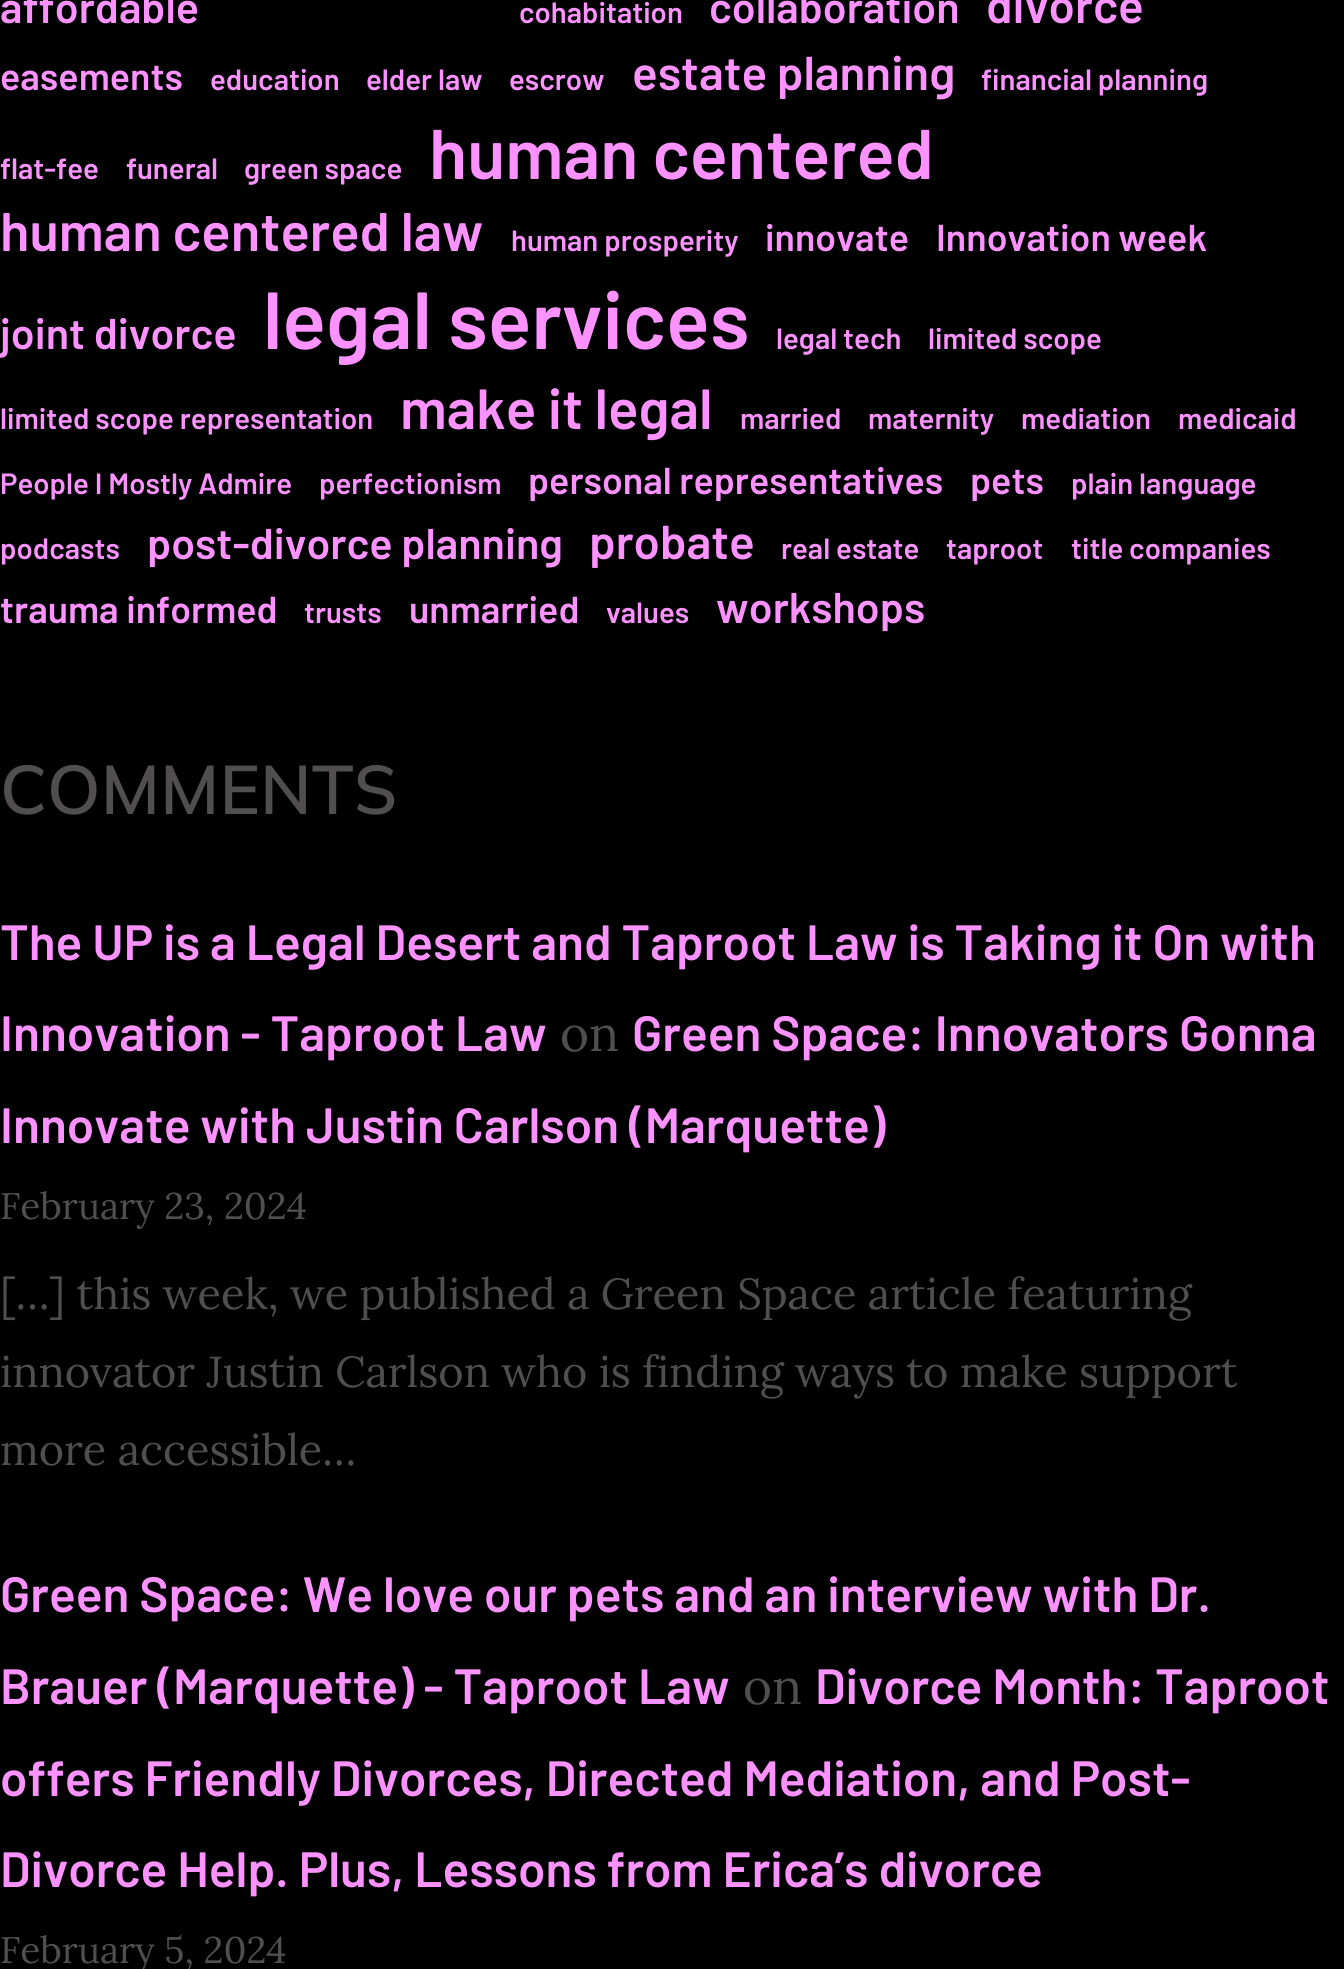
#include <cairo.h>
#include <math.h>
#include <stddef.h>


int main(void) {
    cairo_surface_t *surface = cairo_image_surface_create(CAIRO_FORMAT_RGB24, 1344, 1969);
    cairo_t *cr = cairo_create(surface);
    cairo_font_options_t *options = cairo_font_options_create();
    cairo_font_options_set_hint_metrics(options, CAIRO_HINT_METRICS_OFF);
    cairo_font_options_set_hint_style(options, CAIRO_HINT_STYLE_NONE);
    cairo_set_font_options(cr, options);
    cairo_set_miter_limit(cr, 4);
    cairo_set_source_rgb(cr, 0, 0, 0);
    cairo_paint(cr);
    cairo_select_font_face(cr, "Barlow SemiBold", CAIRO_FONT_SLANT_NORMAL, CAIRO_FONT_WEIGHT_NORMAL);
    cairo_set_font_size(cr, 43);
    cairo_set_source_rgb(cr, 0.984, 0.573, 1);
    cairo_move_to(cr, 0, 23);
    cairo_show_text(cr, "affordable");
    cairo_set_font_size(cr, 29.3);
    cairo_move_to(cr, 519, 23);
    cairo_show_text(cr, "cohabitation");
    cairo_set_font_size(cr, 43);
    cairo_move_to(cr, 709, 23);
    cairo_show_text(cr, "collaboration");
    cairo_set_font_size(cr, 47.5);
    cairo_move_to(cr, 986, 23);
    cairo_show_text(cr, "divorce");
    cairo_set_font_size(cr, 37.5);
    cairo_move_to(cr, 0, 90);
    cairo_show_text(cr, "easements");
    cairo_set_font_size(cr, 29.3);
    cairo_move_to(cr, 210, 90);
    cairo_show_text(cr, "education");
    cairo_move_to(cr, 366, 90);
    cairo_show_text(cr, "elder law");
    cairo_move_to(cr, 509, 90);
    cairo_show_text(cr, "escrow");
    cairo_set_font_size(cr, 47.5);
    cairo_move_to(cr, 632, 90);
    cairo_show_text(cr, "estate planning");
    cairo_set_font_size(cr, 29.3);
    cairo_move_to(cr, 981, 90);
    cairo_show_text(cr, "financial planning");
    cairo_move_to(cr, 0, 179);
    cairo_show_text(cr, "flat-fee");
    cairo_move_to(cr, 126, 179);
    cairo_show_text(cr, "funeral");
    cairo_move_to(cr, 244, 179);
    cairo_show_text(cr, "green space");
    cairo_set_font_size(cr, 70.25);
    cairo_move_to(cr, 429, 179);
    cairo_show_text(cr, "human centered");
    cairo_set_font_size(cr, 54.25);
    cairo_move_to(cr, 0, 251);
    cairo_show_text(cr, "human centered law");
    cairo_set_font_size(cr, 29.3);
    cairo_move_to(cr, 511, 251);
    cairo_show_text(cr, "human prosperity");
    cairo_set_font_size(cr, 37.5);
    cairo_move_to(cr, 765, 251);
    cairo_show_text(cr, "innovate");
    cairo_move_to(cr, 936, 251);
    cairo_show_text(cr, "Innovation week");
    cairo_set_font_size(cr, 43);
    cairo_move_to(cr, 0, 349);
    cairo_show_text(cr, "joint divorce");
    cairo_set_font_size(cr, 80.75);
    cairo_move_to(cr, 263, 349);
    cairo_show_text(cr, "legal services");
    cairo_set_font_size(cr, 29.3);
    cairo_move_to(cr, 776, 349);
    cairo_show_text(cr, "legal tech");
    cairo_move_to(cr, 928, 349);
    cairo_show_text(cr, "limited scope");
    cairo_move_to(cr, 0, 429);
    cairo_show_text(cr, "limited scope representation");
    cairo_set_font_size(cr, 56.5);
    cairo_move_to(cr, 400, 429);
    cairo_show_text(cr, "make it legal");
    cairo_set_font_size(cr, 29.3);
    cairo_move_to(cr, 740, 429);
    cairo_show_text(cr, "married");
    cairo_move_to(cr, 868, 429);
    cairo_show_text(cr, "maternity");
    cairo_move_to(cr, 1021, 429);
    cairo_show_text(cr, "mediation");
    cairo_move_to(cr, 1178, 429);
    cairo_show_text(cr, "medicaid");
    cairo_move_to(cr, 0, 494);
    cairo_show_text(cr, "People I Mostly Admire");
    cairo_move_to(cr, 319, 494);
    cairo_show_text(cr, "perfectionism");
    cairo_set_font_size(cr, 37.5);
    cairo_move_to(cr, 528, 494);
    cairo_show_text(cr, "personal representatives");
    cairo_move_to(cr, 970, 494);
    cairo_show_text(cr, "pets");
    cairo_set_font_size(cr, 29.3);
    cairo_move_to(cr, 1071, 494);
    cairo_show_text(cr, "plain language");
    cairo_move_to(cr, 0, 559);
    cairo_show_text(cr, "podcasts");
    cairo_set_font_size(cr, 43);
    cairo_move_to(cr, 147, 559);
    cairo_show_text(cr, "post-divorce planning");
    cairo_set_font_size(cr, 47.5);
    cairo_move_to(cr, 589, 559);
    cairo_show_text(cr, "probate");
    cairo_set_font_size(cr, 29.3);
    cairo_move_to(cr, 781, 559);
    cairo_show_text(cr, "real estate");
    cairo_move_to(cr, 946, 559);
    cairo_show_text(cr, "taproot");
    cairo_move_to(cr, 1071, 559);
    cairo_show_text(cr, "title companies");
    cairo_set_font_size(cr, 37.5);
    cairo_move_to(cr, 0, 623);
    cairo_show_text(cr, "trauma informed");
    cairo_set_font_size(cr, 29.3);
    cairo_move_to(cr, 304, 623);
    cairo_show_text(cr, "trusts");
    cairo_set_font_size(cr, 37.5);
    cairo_move_to(cr, 409, 623);
    cairo_show_text(cr, "unmarried");
    cairo_set_font_size(cr, 29.3);
    cairo_move_to(cr, 606, 623);
    cairo_show_text(cr, "values");
    cairo_set_font_size(cr, 43);
    cairo_move_to(cr, 716, 623);
    cairo_show_text(cr, "workshops");
    cairo_select_font_face(cr, "Mulish SemiBold", CAIRO_FONT_SLANT_NORMAL, CAIRO_FONT_WEIGHT_NORMAL);
    cairo_set_font_size(cr, 68.75);
    cairo_set_source_rgb(cr, 0.314, 0.306, 0.306);
    cairo_move_to(cr, 0, 814);
    cairo_show_text(cr, "COMMENTS");
    cairo_select_font_face(cr, "Barlow SemiBold", CAIRO_FONT_SLANT_NORMAL, CAIRO_FONT_WEIGHT_NORMAL);
    cairo_set_font_size(cr, 49.5);
    cairo_set_source_rgb(cr, 0.984, 0.573, 1);
    cairo_move_to(cr, 0, 960);
    cairo_show_text(cr, "The UP is a Legal Desert and Taproot Law is Taking it On with");
    cairo_move_to(cr, 0, 1051);
    cairo_show_text(cr, "Innovation - Taproot Law");
    cairo_select_font_face(cr, "Lora", CAIRO_FONT_SLANT_NORMAL, CAIRO_FONT_WEIGHT_NORMAL);
    cairo_set_source_rgb(cr, 0.314, 0.306, 0.306);
    cairo_move_to(cr, 560, 1051);
    cairo_show_text(cr, "on");
    cairo_select_font_face(cr, "Barlow SemiBold", CAIRO_FONT_SLANT_NORMAL, CAIRO_FONT_WEIGHT_NORMAL);
    cairo_set_source_rgb(cr, 0.984, 0.573, 1);
    cairo_move_to(cr, 632, 1051);
    cairo_show_text(cr, "Green Space: Innovators Gonna");
    cairo_move_to(cr, 0, 1143);
    cairo_show_text(cr, "Innovate with Justin Carlson (Marquette)");
    cairo_select_font_face(cr, "Lora", CAIRO_FONT_SLANT_NORMAL, CAIRO_FONT_WEIGHT_NORMAL);
    cairo_set_font_size(cr, 37);
    cairo_set_source_rgb(cr, 0.314, 0.306, 0.306);
    cairo_move_to(cr, 0, 1219);
    cairo_show_text(cr, "February 23, 2024");
    cairo_set_font_size(cr, 43.3);
    cairo_move_to(cr, 0, 1309);
    cairo_show_text(cr, "[…] this week, we published a Green Space article featuring");
    cairo_move_to(cr, 0, 1387);
    cairo_show_text(cr, "innovator Justin Carlson who is finding ways to make support");
    cairo_move_to(cr, 0, 1465);
    cairo_show_text(cr, "more accessible…");
    cairo_select_font_face(cr, "Barlow SemiBold", CAIRO_FONT_SLANT_NORMAL, CAIRO_FONT_WEIGHT_NORMAL);
    cairo_set_font_size(cr, 49.5);
    cairo_set_source_rgb(cr, 0.984, 0.573, 1);
    cairo_move_to(cr, 0, 1612);
    cairo_show_text(cr, "Green Space: We love our pets and an interview with Dr.");
    cairo_move_to(cr, 0, 1704);
    cairo_show_text(cr, "Brauer (Marquette) - Taproot Law");
    cairo_select_font_face(cr, "Lora", CAIRO_FONT_SLANT_NORMAL, CAIRO_FONT_WEIGHT_NORMAL);
    cairo_set_source_rgb(cr, 0.314, 0.306, 0.306);
    cairo_move_to(cr, 743, 1704);
    cairo_show_text(cr, "on");
    cairo_select_font_face(cr, "Barlow SemiBold", CAIRO_FONT_SLANT_NORMAL, CAIRO_FONT_WEIGHT_NORMAL);
    cairo_set_source_rgb(cr, 0.984, 0.573, 1);
    cairo_move_to(cr, 815, 1704);
    cairo_show_text(cr, "Divorce Month: Taproot");
    cairo_move_to(cr, 0, 1796);
    cairo_show_text(cr, "offers Friendly Divorces, Directed Mediation, and Post-");
    cairo_move_to(cr, 0, 1887);
    cairo_show_text(cr, "Divorce Help. Plus, Lessons from Erica’s divorce");
    cairo_select_font_face(cr, "Lora", CAIRO_FONT_SLANT_NORMAL, CAIRO_FONT_WEIGHT_NORMAL);
    cairo_set_font_size(cr, 37);
    cairo_set_source_rgb(cr, 0.314, 0.306, 0.306);
    cairo_move_to(cr, 0, 1963);
    cairo_show_text(cr, "February 5, 2024");
    cairo_surface_write_to_png(surface, "page.png");
    cairo_font_options_destroy(options);
    cairo_destroy(cr);
    cairo_surface_destroy(surface);
    return 0;
}
